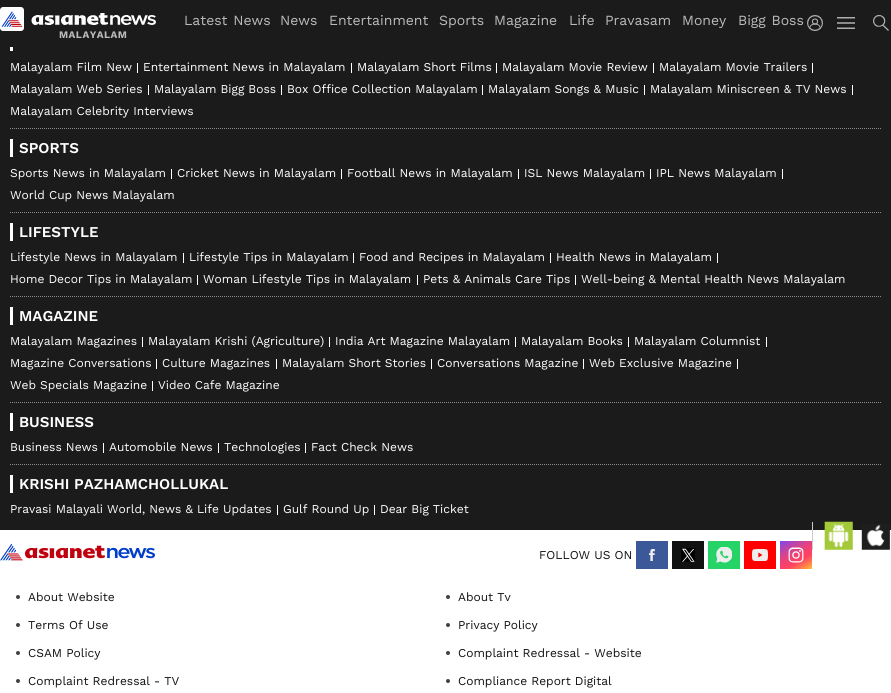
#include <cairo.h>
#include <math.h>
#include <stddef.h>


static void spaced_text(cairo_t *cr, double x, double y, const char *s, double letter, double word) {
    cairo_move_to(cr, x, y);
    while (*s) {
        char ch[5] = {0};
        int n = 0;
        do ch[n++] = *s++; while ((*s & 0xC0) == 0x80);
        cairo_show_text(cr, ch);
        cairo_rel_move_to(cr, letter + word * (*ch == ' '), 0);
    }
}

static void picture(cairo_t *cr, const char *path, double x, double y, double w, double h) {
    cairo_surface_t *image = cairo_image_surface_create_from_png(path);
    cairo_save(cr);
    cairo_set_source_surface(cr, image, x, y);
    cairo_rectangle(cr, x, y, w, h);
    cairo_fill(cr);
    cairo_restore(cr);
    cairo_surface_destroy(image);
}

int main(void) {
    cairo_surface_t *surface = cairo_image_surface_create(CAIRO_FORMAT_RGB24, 891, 693);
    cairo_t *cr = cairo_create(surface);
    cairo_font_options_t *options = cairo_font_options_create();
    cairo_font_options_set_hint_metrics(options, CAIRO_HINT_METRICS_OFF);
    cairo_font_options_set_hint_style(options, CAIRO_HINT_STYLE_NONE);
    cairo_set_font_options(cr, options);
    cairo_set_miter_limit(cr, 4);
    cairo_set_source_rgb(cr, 1, 1, 1);
    cairo_paint(cr);
    cairo_set_source_rgb(cr, 0.106, 0.106, 0.106);
    cairo_rectangle(cr, 0, 0, 891, 46);
    cairo_fill(cr);
    cairo_select_font_face(cr, "Work Sans", CAIRO_FONT_SLANT_NORMAL, CAIRO_FONT_WEIGHT_NORMAL);
    cairo_set_font_size(cr, 14);
    cairo_set_source_rgb(cr, 0.733, 0.733, 0.733);
    spaced_text(cr, 184, 25, "Latest News", 0, 1);
    cairo_move_to(cr, 280, 25);
    cairo_show_text(cr, "News");
    cairo_move_to(cr, 329, 25);
    cairo_show_text(cr, "Entertainment");
    cairo_move_to(cr, 439, 25);
    cairo_show_text(cr, "Sports");
    cairo_move_to(cr, 494, 25);
    cairo_show_text(cr, "Magazine");
    cairo_move_to(cr, 569, 25);
    cairo_show_text(cr, "Life");
    cairo_move_to(cr, 605, 25);
    cairo_show_text(cr, "Pravasam");
    cairo_move_to(cr, 682, 25);
    cairo_show_text(cr, "Money");
    spaced_text(cr, 738, 25, "Bigg Boss", 0, 1);
    picture(cr, "img1.png", 807, 15, 16, 16);
    picture(cr, "img2.png", 837, 17, 18, 12);
    picture(cr, "img3.png", 873, 15, 16, 16);
    picture(cr, "img4.png", 0, 7, 156, 24);
    cairo_select_font_face(cr, "Work Sans", CAIRO_FONT_SLANT_NORMAL, CAIRO_FONT_WEIGHT_BOLD);
    cairo_set_font_size(cr, 10);
    spaced_text(cr, 59, 38, "MALAYALAM", 0.5, 0);
    cairo_set_source_rgb(cr, 0.106, 0.106, 0.106);
    cairo_rectangle(cr, 0, 46, 891, 484);
    cairo_fill(cr);
    cairo_new_path(cr);
    cairo_move_to(cr, 10, 128.5);
    cairo_line_to(cr, 881, 128.5);
    cairo_set_source_rgb(cr, 0.553, 0.553, 0.553);
    cairo_set_line_width(cr, 1);
    cairo_set_dash(cr, (double[]){1, 1}, 2, 0);
    cairo_stroke(cr);
    cairo_set_source_rgb(cr, 1, 1, 1);
    cairo_rectangle(cr, 10, 47, 3, 4);
    cairo_fill(cr);
    cairo_select_font_face(cr, "Work Sans", CAIRO_FONT_SLANT_NORMAL, CAIRO_FONT_WEIGHT_NORMAL);
    cairo_set_font_size(cr, 12);
    cairo_move_to(cr, 10, 71);
    cairo_show_text(cr, "Malayalam Film New");
    cairo_rectangle(cr, 137, 63, 1, 10);
    cairo_fill(cr);
    cairo_move_to(cr, 143, 71);
    cairo_show_text(cr, "Entertainment News in Malayalam");
    cairo_rectangle(cr, 351, 63, 1, 10);
    cairo_fill(cr);
    cairo_move_to(cr, 357, 71);
    cairo_show_text(cr, "Malayalam Short Films");
    cairo_rectangle(cr, 496, 63, 1, 10);
    cairo_fill(cr);
    cairo_move_to(cr, 502, 71);
    cairo_show_text(cr, "Malayalam Movie Review");
    cairo_rectangle(cr, 653, 63, 1, 10);
    cairo_fill(cr);
    cairo_move_to(cr, 659, 71);
    cairo_show_text(cr, "Malayalam Movie Trailers");
    cairo_rectangle(cr, 812, 63, 1, 10);
    cairo_fill(cr);
    cairo_move_to(cr, 10, 93);
    cairo_show_text(cr, "Malayalam Web Series");
    cairo_rectangle(cr, 148, 85, 1, 10);
    cairo_fill(cr);
    cairo_move_to(cr, 154, 93);
    cairo_show_text(cr, "Malayalam Bigg Boss");
    cairo_rectangle(cr, 281, 85, 1, 10);
    cairo_fill(cr);
    cairo_move_to(cr, 287, 93);
    cairo_show_text(cr, "Box Office Collection Malayalam");
    cairo_rectangle(cr, 482, 85, 1, 10);
    cairo_fill(cr);
    cairo_move_to(cr, 488, 93);
    cairo_show_text(cr, "Malayalam Songs & Music");
    cairo_rectangle(cr, 644, 85, 1, 10);
    cairo_fill(cr);
    cairo_move_to(cr, 650, 93);
    cairo_show_text(cr, "Malayalam Miniscreen & TV News");
    cairo_rectangle(cr, 852, 85, 1, 10);
    cairo_fill(cr);
    cairo_move_to(cr, 10, 115);
    cairo_show_text(cr, "Malayalam Celebrity Interviews");
    cairo_new_path(cr);
    cairo_move_to(cr, 10, 212.5);
    cairo_line_to(cr, 881, 212.5);
    cairo_set_source_rgb(cr, 0.553, 0.553, 0.553);
    cairo_stroke(cr);
    cairo_set_source_rgb(cr, 1, 1, 1);
    cairo_rectangle(cr, 10, 139, 3, 18);
    cairo_fill(cr);
    cairo_select_font_face(cr, "Work Sans SemiBold", CAIRO_FONT_SLANT_NORMAL, CAIRO_FONT_WEIGHT_NORMAL);
    cairo_set_font_size(cr, 15);
    cairo_move_to(cr, 19, 153);
    cairo_show_text(cr, "SPORTS");
    cairo_select_font_face(cr, "Work Sans", CAIRO_FONT_SLANT_NORMAL, CAIRO_FONT_WEIGHT_NORMAL);
    cairo_set_font_size(cr, 12);
    cairo_move_to(cr, 10, 177);
    cairo_show_text(cr, "Sports News in Malayalam");
    cairo_rectangle(cr, 171, 169, 1, 10);
    cairo_fill(cr);
    cairo_move_to(cr, 177, 177);
    cairo_show_text(cr, "Cricket News in Malayalam");
    cairo_rectangle(cr, 341, 169, 1, 10);
    cairo_fill(cr);
    cairo_move_to(cr, 347, 177);
    cairo_show_text(cr, "Football News in Malayalam");
    cairo_rectangle(cr, 518, 169, 1, 10);
    cairo_fill(cr);
    cairo_move_to(cr, 524, 177);
    cairo_show_text(cr, "ISL News Malayalam");
    cairo_rectangle(cr, 650, 169, 1, 10);
    cairo_fill(cr);
    cairo_move_to(cr, 656, 177);
    cairo_show_text(cr, "IPL News Malayalam");
    cairo_rectangle(cr, 782, 169, 1, 10);
    cairo_fill(cr);
    cairo_move_to(cr, 10, 199);
    cairo_show_text(cr, "World Cup News Malayalam");
    cairo_new_path(cr);
    cairo_move_to(cr, 10, 296.5);
    cairo_line_to(cr, 881, 296.5);
    cairo_set_source_rgb(cr, 0.553, 0.553, 0.553);
    cairo_stroke(cr);
    cairo_set_source_rgb(cr, 1, 1, 1);
    cairo_rectangle(cr, 10, 223, 3, 18);
    cairo_fill(cr);
    cairo_select_font_face(cr, "Work Sans SemiBold", CAIRO_FONT_SLANT_NORMAL, CAIRO_FONT_WEIGHT_NORMAL);
    cairo_set_font_size(cr, 15);
    cairo_move_to(cr, 19, 237);
    cairo_show_text(cr, "LIFESTYLE");
    cairo_select_font_face(cr, "Work Sans", CAIRO_FONT_SLANT_NORMAL, CAIRO_FONT_WEIGHT_NORMAL);
    cairo_set_font_size(cr, 12);
    cairo_move_to(cr, 10, 261);
    cairo_show_text(cr, "Lifestyle News in Malayalam");
    cairo_rectangle(cr, 183, 253, 1, 10);
    cairo_fill(cr);
    cairo_move_to(cr, 189, 261);
    cairo_show_text(cr, "Lifestyle Tips in Malayalam");
    cairo_rectangle(cr, 353, 253, 1, 10);
    cairo_fill(cr);
    cairo_move_to(cr, 359, 261);
    cairo_show_text(cr, "Food and Recipes in Malayalam");
    cairo_rectangle(cr, 550, 253, 1, 10);
    cairo_fill(cr);
    cairo_move_to(cr, 556, 261);
    cairo_show_text(cr, "Health News in Malayalam");
    cairo_rectangle(cr, 717, 253, 1, 10);
    cairo_fill(cr);
    cairo_move_to(cr, 10, 283);
    cairo_show_text(cr, "Home Decor Tips in Malayalam");
    cairo_rectangle(cr, 197, 275, 1, 10);
    cairo_fill(cr);
    cairo_move_to(cr, 203, 283);
    cairo_show_text(cr, "Woman Lifestyle Tips in Malayalam");
    cairo_rectangle(cr, 417, 275, 1, 10);
    cairo_fill(cr);
    cairo_move_to(cr, 423, 283);
    cairo_show_text(cr, "Pets & Animals Care Tips");
    cairo_rectangle(cr, 575, 275, 1, 10);
    cairo_fill(cr);
    cairo_move_to(cr, 581, 283);
    cairo_show_text(cr, "Well-being & Mental Health News Malayalam");
    cairo_new_path(cr);
    cairo_move_to(cr, 10, 402.5);
    cairo_line_to(cr, 881, 402.5);
    cairo_set_source_rgb(cr, 0.553, 0.553, 0.553);
    cairo_stroke(cr);
    cairo_set_source_rgb(cr, 1, 1, 1);
    cairo_rectangle(cr, 10, 307, 3, 18);
    cairo_fill(cr);
    cairo_select_font_face(cr, "Work Sans SemiBold", CAIRO_FONT_SLANT_NORMAL, CAIRO_FONT_WEIGHT_NORMAL);
    cairo_set_font_size(cr, 15);
    cairo_move_to(cr, 19, 321);
    cairo_show_text(cr, "MAGAZINE");
    cairo_select_font_face(cr, "Work Sans", CAIRO_FONT_SLANT_NORMAL, CAIRO_FONT_WEIGHT_NORMAL);
    cairo_set_font_size(cr, 12);
    cairo_move_to(cr, 10, 345);
    cairo_show_text(cr, "Malayalam Magazines");
    cairo_rectangle(cr, 142, 337, 1, 10);
    cairo_fill(cr);
    cairo_move_to(cr, 148, 345);
    cairo_show_text(cr, "Malayalam Krishi (Agriculture)");
    cairo_rectangle(cr, 329, 337, 1, 10);
    cairo_fill(cr);
    cairo_move_to(cr, 335, 345);
    cairo_show_text(cr, "India Art Magazine Malayalam");
    cairo_rectangle(cr, 515, 337, 1, 10);
    cairo_fill(cr);
    cairo_move_to(cr, 521, 345);
    cairo_show_text(cr, "Malayalam Books");
    cairo_rectangle(cr, 628, 337, 1, 10);
    cairo_fill(cr);
    cairo_move_to(cr, 634, 345);
    cairo_show_text(cr, "Malayalam Columnist");
    cairo_rectangle(cr, 766, 337, 1, 10);
    cairo_fill(cr);
    cairo_move_to(cr, 10, 367);
    cairo_show_text(cr, "Magazine Conversations");
    cairo_rectangle(cr, 156, 359, 1, 10);
    cairo_fill(cr);
    cairo_move_to(cr, 162, 367);
    cairo_show_text(cr, "Culture Magazines");
    cairo_rectangle(cr, 276, 359, 1, 10);
    cairo_fill(cr);
    cairo_move_to(cr, 282, 367);
    cairo_show_text(cr, "Malayalam Short Stories");
    cairo_rectangle(cr, 431, 359, 1, 10);
    cairo_fill(cr);
    cairo_move_to(cr, 437, 367);
    cairo_show_text(cr, "Conversations Magazine");
    cairo_rectangle(cr, 583, 359, 1, 10);
    cairo_fill(cr);
    cairo_move_to(cr, 589, 367);
    cairo_show_text(cr, "Web Exclusive Magazine");
    cairo_rectangle(cr, 737, 359, 1, 10);
    cairo_fill(cr);
    cairo_move_to(cr, 10, 389);
    cairo_show_text(cr, "Web Specials Magazine");
    cairo_rectangle(cr, 152, 381, 1, 10);
    cairo_fill(cr);
    cairo_move_to(cr, 158, 389);
    cairo_show_text(cr, "Video Cafe Magazine");
    cairo_new_path(cr);
    cairo_move_to(cr, 10, 464.5);
    cairo_line_to(cr, 881, 464.5);
    cairo_set_source_rgb(cr, 0.553, 0.553, 0.553);
    cairo_stroke(cr);
    cairo_set_source_rgb(cr, 1, 1, 1);
    cairo_rectangle(cr, 10, 413, 3, 18);
    cairo_fill(cr);
    cairo_select_font_face(cr, "Work Sans SemiBold", CAIRO_FONT_SLANT_NORMAL, CAIRO_FONT_WEIGHT_NORMAL);
    cairo_set_font_size(cr, 15);
    cairo_move_to(cr, 19, 427);
    cairo_show_text(cr, "BUSINESS");
    cairo_select_font_face(cr, "Work Sans", CAIRO_FONT_SLANT_NORMAL, CAIRO_FONT_WEIGHT_NORMAL);
    cairo_set_font_size(cr, 12);
    cairo_move_to(cr, 10, 451);
    cairo_show_text(cr, "Business News");
    cairo_rectangle(cr, 103, 443, 1, 10);
    cairo_fill(cr);
    cairo_move_to(cr, 109, 451);
    cairo_show_text(cr, "Automobile News");
    cairo_rectangle(cr, 218, 443, 1, 10);
    cairo_fill(cr);
    cairo_move_to(cr, 224, 451);
    cairo_show_text(cr, "Technologies");
    cairo_rectangle(cr, 305, 443, 1, 10);
    cairo_fill(cr);
    cairo_move_to(cr, 311, 451);
    cairo_show_text(cr, "Fact Check News");
    cairo_rectangle(cr, 10, 475, 3, 18);
    cairo_fill(cr);
    cairo_select_font_face(cr, "Work Sans SemiBold", CAIRO_FONT_SLANT_NORMAL, CAIRO_FONT_WEIGHT_NORMAL);
    cairo_set_font_size(cr, 15);
    cairo_move_to(cr, 19, 489);
    cairo_show_text(cr, "KRISHI PAZHAMCHOLLUKAL");
    cairo_select_font_face(cr, "Work Sans", CAIRO_FONT_SLANT_NORMAL, CAIRO_FONT_WEIGHT_NORMAL);
    cairo_set_font_size(cr, 12);
    cairo_move_to(cr, 10, 513);
    cairo_show_text(cr, "Pravasi Malayali World, News & Life Updates");
    cairo_rectangle(cr, 277, 505, 1, 10);
    cairo_fill(cr);
    cairo_move_to(cr, 283, 513);
    cairo_show_text(cr, "Gulf Round Up");
    cairo_rectangle(cr, 374, 505, 1, 10);
    cairo_fill(cr);
    cairo_move_to(cr, 380, 513);
    cairo_show_text(cr, "Dear Big Ticket");
    picture(cr, "img5.png", 0, 543, 155, 18);
    cairo_set_source_rgb(cr, 0.067, 0.067, 0.067);
    cairo_move_to(cr, 539, 559);
    cairo_show_text(cr, "FOLLOW US ON");
    cairo_set_source_rgb(cr, 0.8, 0.8, 0.8);
    cairo_rectangle(cr, 812, 522, 1, 28);
    cairo_fill(cr);
    picture(cr, "img6.png", 824, 521, 29, 29);
    picture(cr, "img7.png", 861, 524, 29, 26);
    cairo_set_source_rgb(cr, 0.231, 0.349, 0.596);
    cairo_rectangle(cr, 636, 541, 32, 28);
    cairo_fill(cr);
    picture(cr, "img8.png", 649, 549, 6, 12);
    cairo_set_source_rgb(cr, 0.067, 0.067, 0.067);
    cairo_rectangle(cr, 672, 541, 32, 28);
    cairo_fill(cr);
    picture(cr, "img9.png", 681, 548, 14, 14);
    cairo_set_source_rgb(cr, 0.145, 0.827, 0.4);
    cairo_rectangle(cr, 708, 541, 32, 28);
    cairo_fill(cr);
    picture(cr, "img10.png", 716, 547, 16, 16);
    cairo_set_source_rgb(cr, 1, 0, 0);
    cairo_rectangle(cr, 744, 541, 32, 28);
    cairo_fill(cr);
    picture(cr, "img11.png", 752, 549, 16, 12);
    picture(cr, "img12.png", 780, 541, 32, 28);
    cairo_set_source_rgb(cr, 0.255, 0.255, 0.255);
    cairo_arc(cr, 18, 597, 2, 0, 2 * M_PI);
    cairo_fill(cr);
    cairo_set_source_rgb(cr, 0.067, 0.067, 0.067);
    cairo_move_to(cr, 28, 601);
    cairo_show_text(cr, "About Website");
    cairo_set_source_rgb(cr, 0.255, 0.255, 0.255);
    cairo_new_path(cr);
    cairo_arc(cr, 448, 597, 2, 0, 2 * M_PI);
    cairo_fill(cr);
    cairo_set_source_rgb(cr, 0.067, 0.067, 0.067);
    cairo_move_to(cr, 458, 601);
    cairo_show_text(cr, "About Tv");
    cairo_set_source_rgb(cr, 0.255, 0.255, 0.255);
    cairo_new_path(cr);
    cairo_arc(cr, 18, 625, 2, 0, 2 * M_PI);
    cairo_fill(cr);
    cairo_set_source_rgb(cr, 0.067, 0.067, 0.067);
    cairo_move_to(cr, 28, 629);
    cairo_show_text(cr, "Terms Of Use");
    cairo_set_source_rgb(cr, 0.255, 0.255, 0.255);
    cairo_new_path(cr);
    cairo_arc(cr, 448, 625, 2, 0, 2 * M_PI);
    cairo_fill(cr);
    cairo_set_source_rgb(cr, 0.067, 0.067, 0.067);
    cairo_move_to(cr, 458, 629);
    cairo_show_text(cr, "Privacy Policy");
    cairo_set_source_rgb(cr, 0.255, 0.255, 0.255);
    cairo_new_path(cr);
    cairo_arc(cr, 18, 653, 2, 0, 2 * M_PI);
    cairo_fill(cr);
    cairo_set_source_rgb(cr, 0.067, 0.067, 0.067);
    cairo_move_to(cr, 28, 657);
    cairo_show_text(cr, "CSAM Policy");
    cairo_set_source_rgb(cr, 0.255, 0.255, 0.255);
    cairo_new_path(cr);
    cairo_arc(cr, 448, 653, 2, 0, 2 * M_PI);
    cairo_fill(cr);
    cairo_set_source_rgb(cr, 0.067, 0.067, 0.067);
    cairo_move_to(cr, 458, 657);
    cairo_show_text(cr, "Complaint Redressal - Website");
    cairo_set_source_rgb(cr, 0.255, 0.255, 0.255);
    cairo_new_path(cr);
    cairo_arc(cr, 18, 681, 2, 0, 2 * M_PI);
    cairo_fill(cr);
    cairo_set_source_rgb(cr, 0.067, 0.067, 0.067);
    cairo_move_to(cr, 28, 685);
    cairo_show_text(cr, "Complaint Redressal - TV");
    cairo_set_source_rgb(cr, 0.255, 0.255, 0.255);
    cairo_new_path(cr);
    cairo_arc(cr, 448, 681, 2, 0, 2 * M_PI);
    cairo_fill(cr);
    cairo_set_source_rgb(cr, 0.067, 0.067, 0.067);
    cairo_move_to(cr, 458, 685);
    cairo_show_text(cr, "Compliance Report Digital");
    cairo_surface_write_to_png(surface, "page.png");
    cairo_font_options_destroy(options);
    cairo_destroy(cr);
    cairo_surface_destroy(surface);
    return 0;
}
